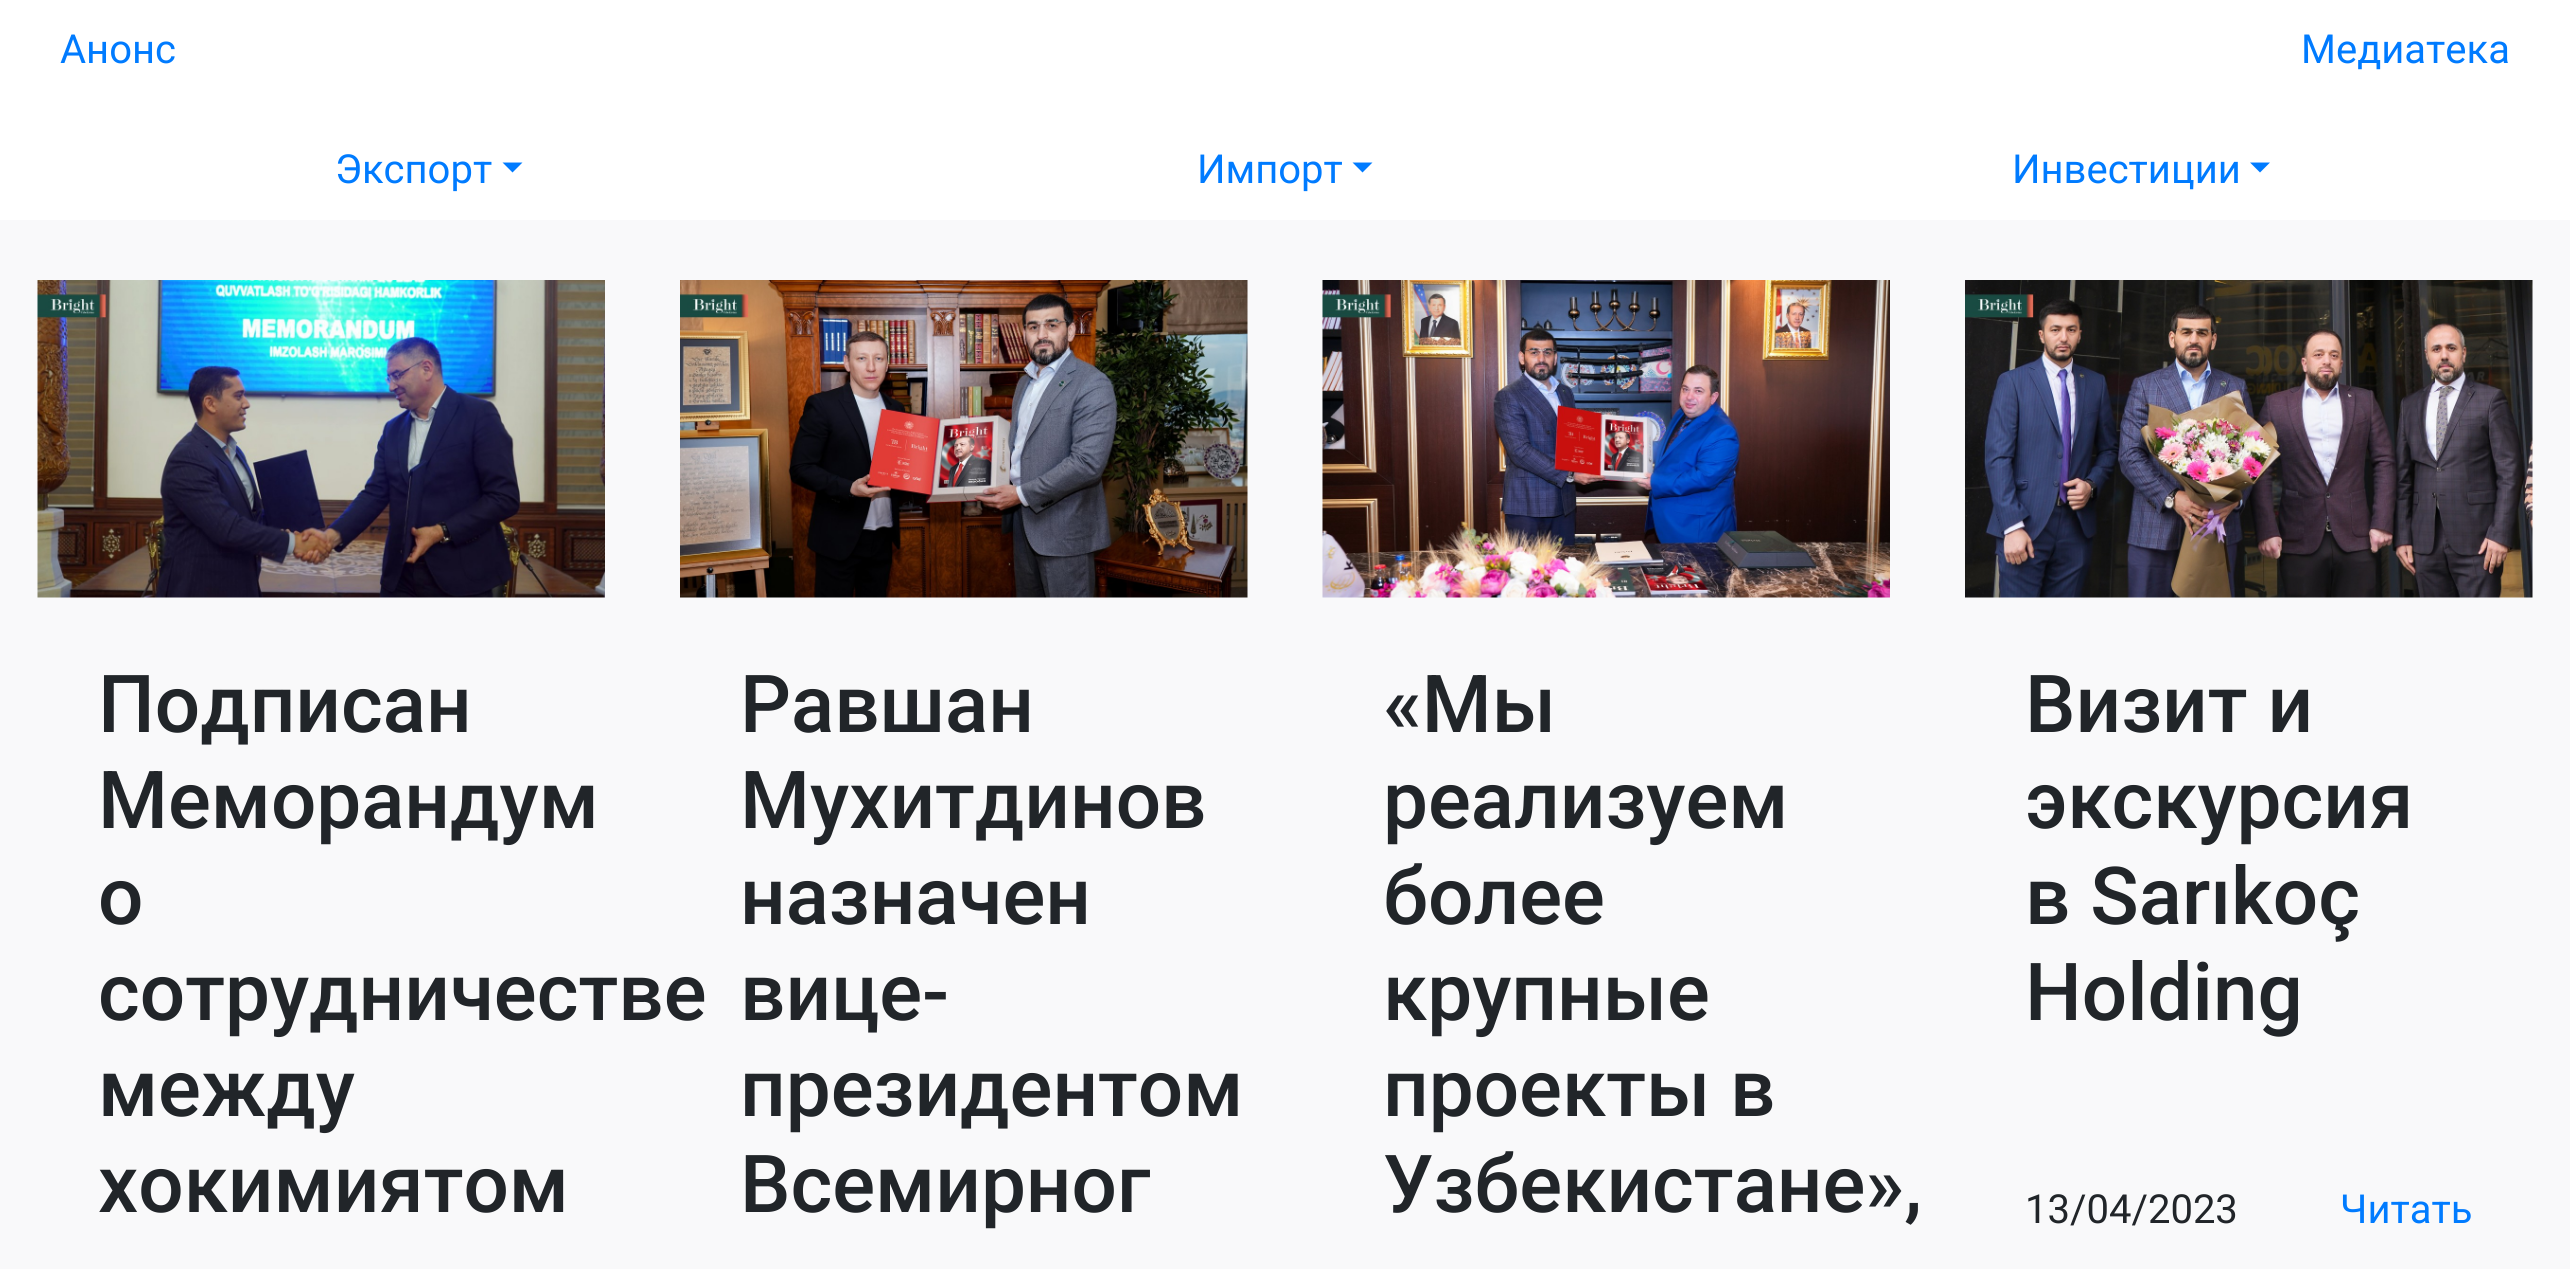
#include <cairo.h>
#include <math.h>
#include <stddef.h>


static void picture(cairo_t *cr, const char *path, double x, double y, double w, double h) {
    cairo_surface_t *image = cairo_image_surface_create_from_png(path);
    cairo_save(cr);
    cairo_set_source_surface(cr, image, x, y);
    cairo_rectangle(cr, x, y, w, h);
    cairo_fill(cr);
    cairo_restore(cr);
    cairo_surface_destroy(image);
}

int main(void) {
    cairo_surface_t *surface = cairo_image_surface_create(CAIRO_FORMAT_RGB24, 2570, 1269);
    cairo_t *cr = cairo_create(surface);
    cairo_font_options_t *options = cairo_font_options_create();
    cairo_font_options_set_hint_metrics(options, CAIRO_HINT_METRICS_OFF);
    cairo_font_options_set_hint_style(options, CAIRO_HINT_STYLE_NONE);
    cairo_set_font_options(cr, options);
    cairo_set_miter_limit(cr, 4);
    cairo_set_source_rgb(cr, 1, 1, 1);
    cairo_paint(cr);
    cairo_select_font_face(cr, "Roboto", CAIRO_FONT_SLANT_NORMAL, CAIRO_FONT_WEIGHT_NORMAL);
    cairo_set_font_size(cr, 40);
    cairo_set_source_rgb(cr, 0, 0.482, 1);
    cairo_move_to(cr, 60, 63);
    cairo_show_text(cr, "Анонс");
    cairo_move_to(cr, 2301, 63);
    cairo_show_text(cr, "Медиатека");
    cairo_move_to(cr, 335, 183);
    cairo_show_text(cr, "Экспорт");
    cairo_new_path(cr);
    cairo_move_to(cr, 502.5, 162.5);
    cairo_line_to(cr, 522.5, 162.5);
    cairo_line_to(cr, 512.5, 172.5);
    cairo_close_path(cr);
    cairo_fill(cr);
    cairo_move_to(cr, 1197, 183);
    cairo_show_text(cr, "Импорт");
    cairo_new_path(cr);
    cairo_move_to(cr, 1352.5, 162.5);
    cairo_line_to(cr, 1372.5, 162.5);
    cairo_line_to(cr, 1362.5, 172.5);
    cairo_close_path(cr);
    cairo_fill(cr);
    cairo_move_to(cr, 2012, 183);
    cairo_show_text(cr, "Инвестиции");
    cairo_new_path(cr);
    cairo_move_to(cr, 2250, 162.5);
    cairo_line_to(cr, 2270, 162.5);
    cairo_line_to(cr, 2260, 172.5);
    cairo_close_path(cr);
    cairo_fill(cr);
    cairo_set_source_rgb(cr, 0.973, 0.976, 0.98);
    cairo_rectangle(cr, 0, 220, 2570, 1049);
    cairo_fill(cr);
    picture(cr, "img1.png", 37, 280, 568, 318);
    cairo_select_font_face(cr, "Roboto Medium", CAIRO_FONT_SLANT_NORMAL, CAIRO_FONT_WEIGHT_NORMAL);
    cairo_set_font_size(cr, 80);
    cairo_set_source_rgb(cr, 0.129, 0.145, 0.161);
    cairo_move_to(cr, 98, 732);
    cairo_show_text(cr, "Подписан");
    cairo_move_to(cr, 98, 828);
    cairo_show_text(cr, "Меморандум");
    cairo_move_to(cr, 98, 924);
    cairo_show_text(cr, "о");
    cairo_move_to(cr, 98, 1020);
    cairo_show_text(cr, "сотрудничестве");
    cairo_move_to(cr, 98, 1116);
    cairo_show_text(cr, "между");
    cairo_move_to(cr, 98, 1212);
    cairo_show_text(cr, "хокимиятом");
    picture(cr, "img2.png", 680, 280, 568, 318);
    cairo_move_to(cr, 740, 732);
    cairo_show_text(cr, "Равшан");
    cairo_move_to(cr, 740, 828);
    cairo_show_text(cr, "Мухитдинов");
    cairo_move_to(cr, 740, 924);
    cairo_show_text(cr, "назначен");
    cairo_move_to(cr, 740, 1020);
    cairo_show_text(cr, "вице-");
    cairo_move_to(cr, 740, 1116);
    cairo_show_text(cr, "президентом");
    cairo_move_to(cr, 740, 1212);
    cairo_show_text(cr, "Всемирног");
    picture(cr, "img3.png", 1322, 280, 568, 318);
    cairo_move_to(cr, 1383, 732);
    cairo_show_text(cr, "«Мы");
    cairo_move_to(cr, 1383, 828);
    cairo_show_text(cr, "реализуем");
    cairo_move_to(cr, 1383, 924);
    cairo_show_text(cr, "более");
    cairo_move_to(cr, 1383, 1020);
    cairo_show_text(cr, "крупные");
    cairo_move_to(cr, 1383, 1116);
    cairo_show_text(cr, "проекты в");
    cairo_move_to(cr, 1383, 1212);
    cairo_show_text(cr, "Узбекистане»,");
    picture(cr, "img4.png", 1965, 280, 568, 318);
    cairo_move_to(cr, 2025, 732);
    cairo_show_text(cr, "Визит и");
    cairo_move_to(cr, 2025, 828);
    cairo_show_text(cr, "экскурсия");
    cairo_move_to(cr, 2025, 924);
    cairo_show_text(cr, "в Sarıkoç");
    cairo_move_to(cr, 2025, 1020);
    cairo_show_text(cr, "Holding");
    cairo_select_font_face(cr, "Roboto", CAIRO_FONT_SLANT_NORMAL, CAIRO_FONT_WEIGHT_NORMAL);
    cairo_set_font_size(cr, 40);
    cairo_move_to(cr, 2025, 1223);
    cairo_show_text(cr, "13/04/2023");
    cairo_set_source_rgb(cr, 0, 0.482, 1);
    cairo_move_to(cr, 2340, 1223);
    cairo_show_text(cr, "Читать");
    cairo_surface_write_to_png(surface, "page.png");
    cairo_font_options_destroy(options);
    cairo_destroy(cr);
    cairo_surface_destroy(surface);
    return 0;
}
